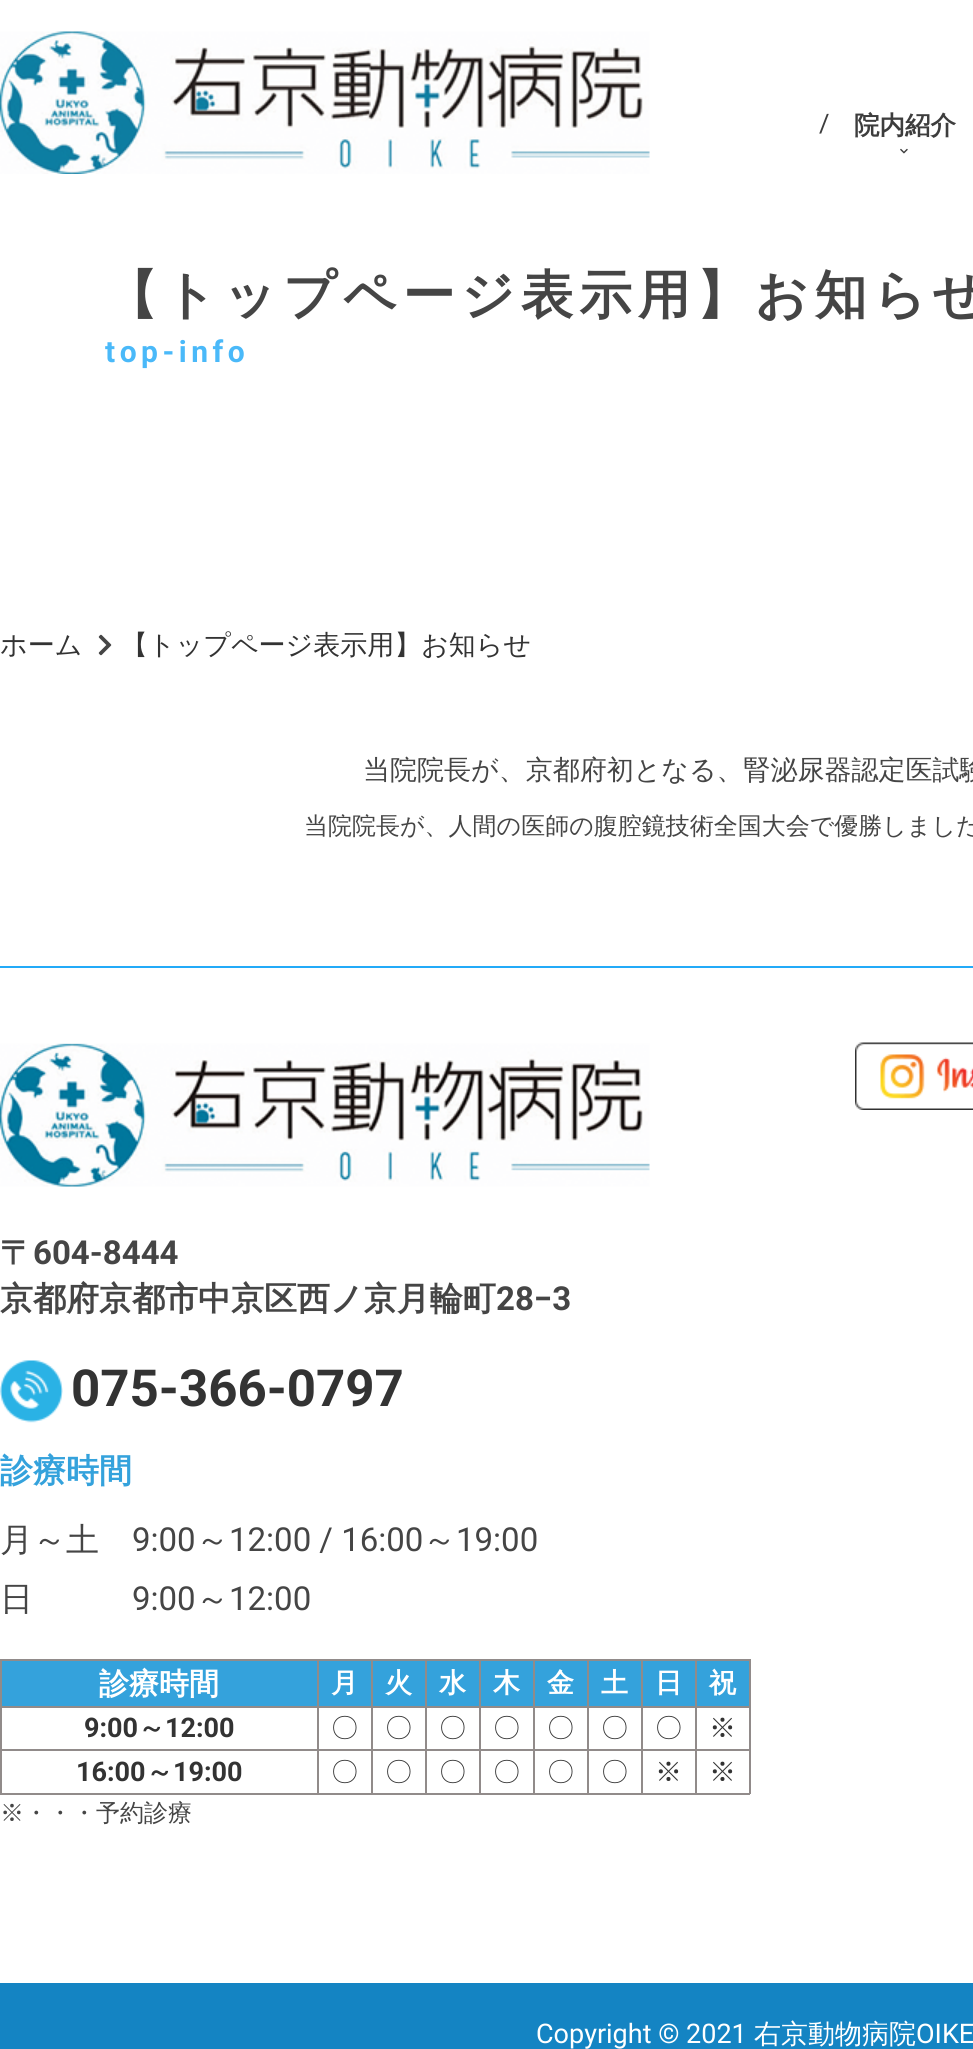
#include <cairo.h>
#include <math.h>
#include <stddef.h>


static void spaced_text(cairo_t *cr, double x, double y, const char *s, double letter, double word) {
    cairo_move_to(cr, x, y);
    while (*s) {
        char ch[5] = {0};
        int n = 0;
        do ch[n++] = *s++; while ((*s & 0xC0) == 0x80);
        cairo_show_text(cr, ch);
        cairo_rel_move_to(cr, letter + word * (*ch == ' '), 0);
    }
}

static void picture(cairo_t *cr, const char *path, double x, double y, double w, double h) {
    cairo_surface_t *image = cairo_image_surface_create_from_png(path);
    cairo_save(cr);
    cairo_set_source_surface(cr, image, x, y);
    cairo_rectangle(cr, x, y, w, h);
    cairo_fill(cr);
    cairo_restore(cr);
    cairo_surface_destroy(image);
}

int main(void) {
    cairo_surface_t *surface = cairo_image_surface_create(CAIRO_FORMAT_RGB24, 973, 2049);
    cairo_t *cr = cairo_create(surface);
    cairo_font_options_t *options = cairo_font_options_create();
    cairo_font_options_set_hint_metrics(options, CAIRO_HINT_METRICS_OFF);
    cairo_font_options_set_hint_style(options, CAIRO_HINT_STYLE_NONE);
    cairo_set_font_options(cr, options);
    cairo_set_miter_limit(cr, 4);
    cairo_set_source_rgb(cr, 1, 1, 1);
    cairo_paint(cr);
    picture(cr, "img1.png", 0, 31, 650, 143);
    cairo_select_font_face(cr, "Roboto", CAIRO_FONT_SLANT_NORMAL, CAIRO_FONT_WEIGHT_NORMAL);
    cairo_set_font_size(cr, 25.5);
    cairo_set_source_rgb(cr, 0.239, 0.239, 0.239);
    cairo_move_to(cr, 819, 132);
    cairo_show_text(cr, "/");
    cairo_select_font_face(cr, "WenQuanYi Zen Hei", CAIRO_FONT_SLANT_NORMAL, CAIRO_FONT_WEIGHT_BOLD);
    cairo_move_to(cr, 854, 134);
    cairo_show_text(cr, "院内紹介");
    picture(cr, "img2.png", 900, 148, 8, 6);
    cairo_set_font_size(cr, 52.5);
    cairo_set_source_rgb(cr, 0.271, 0.271, 0.271);
    spaced_text(cr, 105, 313, "【トップページ表示用】お知らせ", 6, 0);
    cairo_select_font_face(cr, "Roboto", CAIRO_FONT_SLANT_NORMAL, CAIRO_FONT_WEIGHT_BOLD);
    cairo_set_font_size(cr, 30);
    cairo_set_source_rgb(cr, 0.29, 0.725, 0.973);
    spaced_text(cr, 105, 362, "top-info", 4.5, 0);
    cairo_select_font_face(cr, "WenQuanYi Zen Hei Medium", CAIRO_FONT_SLANT_NORMAL, CAIRO_FONT_WEIGHT_NORMAL);
    cairo_set_font_size(cr, 27);
    cairo_set_source_rgb(cr, 0.2, 0.2, 0.2);
    cairo_move_to(cr, 0, 654);
    cairo_show_text(cr, "ホーム");
    picture(cr, "img3.png", 98, 634, 14, 22);
    cairo_move_to(cr, 121, 654);
    cairo_show_text(cr, "【トップページ表示用】お知らせ");
    cairo_set_source_rgb(cr, 0.271, 0.271, 0.271);
    cairo_move_to(cr, 363, 779);
    cairo_show_text(cr, "当院院長が、京都府初となる、腎泌尿器認定医試験");
    cairo_set_font_size(cr, 24);
    cairo_move_to(cr, 304, 834);
    cairo_show_text(cr, "当院院長が、人間の医師の腹腔鏡技術全国大会で優勝しました");
    cairo_set_source_rgb(cr, 0.137, 0.667, 0.969);
    cairo_rectangle(cr, 0, 966, 973, 2);
    cairo_fill(cr);
    picture(cr, "img4.png", 855, 1042, 118, 68);
    picture(cr, "img5.png", 0, 1043, 650, 144);
    cairo_select_font_face(cr, "WenQuanYi Zen Hei", CAIRO_FONT_SLANT_NORMAL, CAIRO_FONT_WEIGHT_BOLD);
    cairo_set_font_size(cr, 33);
    cairo_set_source_rgb(cr, 0.271, 0.271, 0.271);
    cairo_move_to(cr, 0, 1264);
    cairo_show_text(cr, "〒");
    cairo_select_font_face(cr, "Roboto", CAIRO_FONT_SLANT_NORMAL, CAIRO_FONT_WEIGHT_BOLD);
    cairo_move_to(cr, 33, 1264);
    cairo_show_text(cr, "604-8444");
    cairo_select_font_face(cr, "WenQuanYi Zen Hei", CAIRO_FONT_SLANT_NORMAL, CAIRO_FONT_WEIGHT_BOLD);
    cairo_move_to(cr, 0, 1310);
    cairo_show_text(cr, "京都府京都市中京区西ノ京月輪町");
    cairo_select_font_face(cr, "Roboto", CAIRO_FONT_SLANT_NORMAL, CAIRO_FONT_WEIGHT_BOLD);
    cairo_move_to(cr, 496, 1310);
    cairo_show_text(cr, "28−3");
    picture(cr, "img6.png", 0, 1360, 63, 63);
    cairo_set_font_size(cr, 51);
    cairo_set_source_rgb(cr, 0.2, 0.2, 0.2);
    cairo_move_to(cr, 71, 1406);
    cairo_show_text(cr, "075-366-0797");
    cairo_select_font_face(cr, "WenQuanYi Zen Hei", CAIRO_FONT_SLANT_NORMAL, CAIRO_FONT_WEIGHT_BOLD);
    cairo_set_font_size(cr, 33);
    cairo_set_source_rgb(cr, 0.204, 0.635, 0.863);
    cairo_move_to(cr, 0, 1482);
    cairo_show_text(cr, "診療時間");
    cairo_select_font_face(cr, "WenQuanYi Zen Hei Medium", CAIRO_FONT_SLANT_NORMAL, CAIRO_FONT_WEIGHT_NORMAL);
    cairo_set_source_rgb(cr, 0.271, 0.271, 0.271);
    cairo_move_to(cr, 0, 1551);
    cairo_show_text(cr, "月～土");
    cairo_select_font_face(cr, "Roboto", CAIRO_FONT_SLANT_NORMAL, CAIRO_FONT_WEIGHT_NORMAL);
    cairo_move_to(cr, 132, 1551);
    cairo_show_text(cr, "9:00");
    cairo_select_font_face(cr, "WenQuanYi Zen Hei Medium", CAIRO_FONT_SLANT_NORMAL, CAIRO_FONT_WEIGHT_NORMAL);
    cairo_move_to(cr, 196, 1551);
    cairo_show_text(cr, "～");
    cairo_select_font_face(cr, "Roboto", CAIRO_FONT_SLANT_NORMAL, CAIRO_FONT_WEIGHT_NORMAL);
    cairo_move_to(cr, 229, 1551);
    cairo_show_text(cr, "12:00 / 16:00");
    cairo_select_font_face(cr, "WenQuanYi Zen Hei Medium", CAIRO_FONT_SLANT_NORMAL, CAIRO_FONT_WEIGHT_NORMAL);
    cairo_move_to(cr, 423, 1551);
    cairo_show_text(cr, "～");
    cairo_select_font_face(cr, "Roboto", CAIRO_FONT_SLANT_NORMAL, CAIRO_FONT_WEIGHT_NORMAL);
    cairo_move_to(cr, 456, 1551);
    cairo_show_text(cr, "19:00");
    cairo_select_font_face(cr, "WenQuanYi Zen Hei Medium", CAIRO_FONT_SLANT_NORMAL, CAIRO_FONT_WEIGHT_NORMAL);
    cairo_move_to(cr, 0, 1610);
    cairo_show_text(cr, "日");
    cairo_select_font_face(cr, "Roboto", CAIRO_FONT_SLANT_NORMAL, CAIRO_FONT_WEIGHT_NORMAL);
    cairo_move_to(cr, 132, 1610);
    cairo_show_text(cr, "9:00");
    cairo_select_font_face(cr, "WenQuanYi Zen Hei Medium", CAIRO_FONT_SLANT_NORMAL, CAIRO_FONT_WEIGHT_NORMAL);
    cairo_move_to(cr, 196, 1610);
    cairo_show_text(cr, "～");
    cairo_select_font_face(cr, "Roboto", CAIRO_FONT_SLANT_NORMAL, CAIRO_FONT_WEIGHT_NORMAL);
    cairo_move_to(cr, 229, 1610);
    cairo_show_text(cr, "12:00");
    cairo_set_source_rgb(cr, 0.204, 0.635, 0.863);
    cairo_rectangle(cr, 2, 1661, 315, 45);
    cairo_fill(cr);
    cairo_set_source_rgb(cr, 0.569, 0.545, 0.541);
    cairo_rectangle(cr, 695, 1659, 55, 2);
    cairo_fill(cr);
    cairo_rectangle(cr, 695, 1706, 55, 2);
    cairo_fill(cr);
    cairo_rectangle(cr, 695, 1749, 55, 2);
    cairo_fill(cr);
    cairo_rectangle(cr, 749, 1749, 2, 45);
    cairo_fill(cr);
    cairo_rectangle(cr, 695, 1793, 55, 2);
    cairo_fill(cr);
    cairo_rectangle(cr, 695, 1749, 2, 45);
    cairo_fill(cr);
    cairo_rectangle(cr, 641, 1749, 55, 2);
    cairo_fill(cr);
    cairo_rectangle(cr, 695, 1706, 2, 45);
    cairo_fill(cr);
    cairo_rectangle(cr, 641, 1706, 55, 2);
    cairo_fill(cr);
    cairo_rectangle(cr, 695, 1659, 2, 48);
    cairo_fill(cr);
    cairo_rectangle(cr, 641, 1659, 55, 2);
    cairo_fill(cr);
    cairo_rectangle(cr, 641, 1793, 55, 2);
    cairo_fill(cr);
    cairo_rectangle(cr, 641, 1749, 2, 45);
    cairo_fill(cr);
    cairo_rectangle(cr, 587, 1749, 55, 2);
    cairo_fill(cr);
    cairo_rectangle(cr, 641, 1706, 2, 45);
    cairo_fill(cr);
    cairo_rectangle(cr, 587, 1706, 55, 2);
    cairo_fill(cr);
    cairo_rectangle(cr, 641, 1659, 2, 48);
    cairo_fill(cr);
    cairo_rectangle(cr, 587, 1659, 55, 2);
    cairo_fill(cr);
    cairo_rectangle(cr, 587, 1793, 55, 2);
    cairo_fill(cr);
    cairo_rectangle(cr, 587, 1749, 2, 45);
    cairo_fill(cr);
    cairo_rectangle(cr, 533, 1749, 55, 2);
    cairo_fill(cr);
    cairo_rectangle(cr, 587, 1706, 2, 45);
    cairo_fill(cr);
    cairo_rectangle(cr, 533, 1706, 55, 2);
    cairo_fill(cr);
    cairo_rectangle(cr, 587, 1659, 2, 48);
    cairo_fill(cr);
    cairo_rectangle(cr, 533, 1659, 55, 2);
    cairo_fill(cr);
    cairo_rectangle(cr, 533, 1793, 55, 2);
    cairo_fill(cr);
    cairo_rectangle(cr, 533, 1749, 2, 45);
    cairo_fill(cr);
    cairo_rectangle(cr, 479, 1749, 55, 2);
    cairo_fill(cr);
    cairo_rectangle(cr, 533, 1706, 2, 45);
    cairo_fill(cr);
    cairo_rectangle(cr, 479, 1706, 55, 2);
    cairo_fill(cr);
    cairo_rectangle(cr, 533, 1659, 2, 48);
    cairo_fill(cr);
    cairo_rectangle(cr, 479, 1659, 55, 2);
    cairo_fill(cr);
    cairo_rectangle(cr, 479, 1793, 55, 2);
    cairo_fill(cr);
    cairo_rectangle(cr, 479, 1749, 2, 45);
    cairo_fill(cr);
    cairo_rectangle(cr, 425, 1749, 55, 2);
    cairo_fill(cr);
    cairo_rectangle(cr, 479, 1706, 2, 45);
    cairo_fill(cr);
    cairo_rectangle(cr, 425, 1706, 55, 2);
    cairo_fill(cr);
    cairo_rectangle(cr, 479, 1659, 2, 48);
    cairo_fill(cr);
    cairo_rectangle(cr, 425, 1659, 55, 2);
    cairo_fill(cr);
    cairo_rectangle(cr, 425, 1793, 55, 2);
    cairo_fill(cr);
    cairo_rectangle(cr, 425, 1749, 2, 45);
    cairo_fill(cr);
    cairo_rectangle(cr, 371, 1749, 55, 2);
    cairo_fill(cr);
    cairo_rectangle(cr, 425, 1706, 2, 45);
    cairo_fill(cr);
    cairo_rectangle(cr, 371, 1706, 55, 2);
    cairo_fill(cr);
    cairo_rectangle(cr, 425, 1659, 2, 48);
    cairo_fill(cr);
    cairo_rectangle(cr, 371, 1659, 55, 2);
    cairo_fill(cr);
    cairo_rectangle(cr, 371, 1793, 55, 2);
    cairo_fill(cr);
    cairo_rectangle(cr, 371, 1749, 2, 45);
    cairo_fill(cr);
    cairo_rectangle(cr, 317, 1749, 55, 2);
    cairo_fill(cr);
    cairo_rectangle(cr, 371, 1706, 2, 45);
    cairo_fill(cr);
    cairo_rectangle(cr, 317, 1706, 55, 2);
    cairo_fill(cr);
    cairo_rectangle(cr, 371, 1659, 2, 48);
    cairo_fill(cr);
    cairo_rectangle(cr, 317, 1659, 55, 2);
    cairo_fill(cr);
    cairo_rectangle(cr, 317, 1793, 55, 2);
    cairo_fill(cr);
    cairo_rectangle(cr, 317, 1749, 2, 45);
    cairo_fill(cr);
    cairo_rectangle(cr, 0, 1749, 318, 2);
    cairo_fill(cr);
    cairo_rectangle(cr, 317, 1706, 2, 45);
    cairo_fill(cr);
    cairo_rectangle(cr, 0, 1706, 318, 2);
    cairo_fill(cr);
    cairo_rectangle(cr, 317, 1659, 2, 48);
    cairo_fill(cr);
    cairo_rectangle(cr, 0, 1659, 318, 2);
    cairo_fill(cr);
    cairo_rectangle(cr, 0, 1793, 318, 2);
    cairo_fill(cr);
    cairo_rectangle(cr, 0, 1749, 2, 45);
    cairo_fill(cr);
    cairo_rectangle(cr, 0, 1706, 2, 45);
    cairo_fill(cr);
    cairo_rectangle(cr, 0, 1659, 2, 48);
    cairo_fill(cr);
    cairo_select_font_face(cr, "WenQuanYi Zen Hei", CAIRO_FONT_SLANT_NORMAL, CAIRO_FONT_WEIGHT_BOLD);
    cairo_set_font_size(cr, 30);
    cairo_set_source_rgb(cr, 1, 1, 1);
    cairo_move_to(cr, 99, 1694);
    cairo_show_text(cr, "診療時間");
    cairo_set_source_rgb(cr, 0.204, 0.635, 0.863);
    cairo_rectangle(cr, 319, 1661, 52, 45);
    cairo_fill(cr);
    cairo_set_font_size(cr, 27);
    cairo_set_source_rgb(cr, 1, 1, 1);
    cairo_move_to(cr, 331, 1692);
    cairo_show_text(cr, "月");
    cairo_set_source_rgb(cr, 0.204, 0.635, 0.863);
    cairo_rectangle(cr, 373, 1661, 52, 45);
    cairo_fill(cr);
    cairo_set_source_rgb(cr, 1, 1, 1);
    cairo_move_to(cr, 385, 1692);
    cairo_show_text(cr, "火");
    cairo_set_source_rgb(cr, 0.204, 0.635, 0.863);
    cairo_rectangle(cr, 427, 1661, 52, 45);
    cairo_fill(cr);
    cairo_set_source_rgb(cr, 1, 1, 1);
    cairo_move_to(cr, 439, 1692);
    cairo_show_text(cr, "水");
    cairo_set_source_rgb(cr, 0.204, 0.635, 0.863);
    cairo_rectangle(cr, 481, 1661, 52, 45);
    cairo_fill(cr);
    cairo_set_source_rgb(cr, 1, 1, 1);
    cairo_move_to(cr, 493, 1692);
    cairo_show_text(cr, "木");
    cairo_set_source_rgb(cr, 0.204, 0.635, 0.863);
    cairo_rectangle(cr, 535, 1661, 52, 45);
    cairo_fill(cr);
    cairo_set_source_rgb(cr, 1, 1, 1);
    cairo_move_to(cr, 547, 1692);
    cairo_show_text(cr, "金");
    cairo_set_source_rgb(cr, 0.204, 0.635, 0.863);
    cairo_rectangle(cr, 589, 1661, 52, 45);
    cairo_fill(cr);
    cairo_set_source_rgb(cr, 1, 1, 1);
    cairo_move_to(cr, 601, 1692);
    cairo_show_text(cr, "土");
    cairo_set_source_rgb(cr, 0.204, 0.635, 0.863);
    cairo_rectangle(cr, 643, 1661, 52, 45);
    cairo_fill(cr);
    cairo_set_source_rgb(cr, 1, 1, 1);
    cairo_move_to(cr, 655, 1692);
    cairo_show_text(cr, "日");
    cairo_set_source_rgb(cr, 0.204, 0.635, 0.863);
    cairo_rectangle(cr, 697, 1661, 52, 45);
    cairo_fill(cr);
    cairo_set_source_rgb(cr, 0.569, 0.545, 0.541);
    cairo_rectangle(cr, 749, 1706, 2, 45);
    cairo_fill(cr);
    cairo_rectangle(cr, 749, 1659, 2, 48);
    cairo_fill(cr);
    cairo_set_source_rgb(cr, 1, 1, 1);
    cairo_move_to(cr, 709, 1692);
    cairo_show_text(cr, "祝");
    cairo_select_font_face(cr, "Roboto", CAIRO_FONT_SLANT_NORMAL, CAIRO_FONT_WEIGHT_BOLD);
    cairo_set_source_rgb(cr, 0.2, 0.2, 0.2);
    cairo_move_to(cr, 84, 1737);
    cairo_show_text(cr, "9:00");
    cairo_select_font_face(cr, "WenQuanYi Zen Hei", CAIRO_FONT_SLANT_NORMAL, CAIRO_FONT_WEIGHT_BOLD);
    cairo_move_to(cr, 138, 1737);
    cairo_show_text(cr, "～");
    cairo_select_font_face(cr, "Roboto", CAIRO_FONT_SLANT_NORMAL, CAIRO_FONT_WEIGHT_BOLD);
    cairo_move_to(cr, 165, 1737);
    cairo_show_text(cr, "12:00");
    cairo_select_font_face(cr, "WenQuanYi Zen Hei Medium", CAIRO_FONT_SLANT_NORMAL, CAIRO_FONT_WEIGHT_NORMAL);
    cairo_move_to(cr, 331, 1737);
    cairo_show_text(cr, "〇");
    cairo_move_to(cr, 385, 1737);
    cairo_show_text(cr, "〇");
    cairo_move_to(cr, 439, 1737);
    cairo_show_text(cr, "〇");
    cairo_move_to(cr, 493, 1737);
    cairo_show_text(cr, "〇");
    cairo_move_to(cr, 547, 1737);
    cairo_show_text(cr, "〇");
    cairo_move_to(cr, 601, 1737);
    cairo_show_text(cr, "〇");
    cairo_move_to(cr, 655, 1737);
    cairo_show_text(cr, "〇");
    cairo_move_to(cr, 709, 1737);
    cairo_show_text(cr, "※");
    cairo_select_font_face(cr, "Roboto", CAIRO_FONT_SLANT_NORMAL, CAIRO_FONT_WEIGHT_BOLD);
    cairo_move_to(cr, 76, 1781);
    cairo_show_text(cr, "16:00");
    cairo_select_font_face(cr, "WenQuanYi Zen Hei", CAIRO_FONT_SLANT_NORMAL, CAIRO_FONT_WEIGHT_BOLD);
    cairo_move_to(cr, 146, 1781);
    cairo_show_text(cr, "～");
    cairo_select_font_face(cr, "Roboto", CAIRO_FONT_SLANT_NORMAL, CAIRO_FONT_WEIGHT_BOLD);
    cairo_move_to(cr, 173, 1781);
    cairo_show_text(cr, "19:00");
    cairo_select_font_face(cr, "WenQuanYi Zen Hei Medium", CAIRO_FONT_SLANT_NORMAL, CAIRO_FONT_WEIGHT_NORMAL);
    cairo_move_to(cr, 331, 1781);
    cairo_show_text(cr, "〇");
    cairo_move_to(cr, 385, 1781);
    cairo_show_text(cr, "〇");
    cairo_move_to(cr, 439, 1781);
    cairo_show_text(cr, "〇");
    cairo_move_to(cr, 493, 1781);
    cairo_show_text(cr, "〇");
    cairo_move_to(cr, 547, 1781);
    cairo_show_text(cr, "〇");
    cairo_move_to(cr, 601, 1781);
    cairo_show_text(cr, "〇");
    cairo_move_to(cr, 655, 1781);
    cairo_show_text(cr, "※");
    cairo_move_to(cr, 709, 1781);
    cairo_show_text(cr, "※");
    cairo_set_font_size(cr, 24);
    cairo_set_source_rgb(cr, 0.271, 0.271, 0.271);
    cairo_move_to(cr, 0, 1821);
    cairo_show_text(cr, "※・・・予約診療");
    cairo_set_source_rgb(cr, 0.082, 0.518, 0.765);
    cairo_rectangle(cr, 0, 1983, 973, 66);
    cairo_fill(cr);
    cairo_select_font_face(cr, "Roboto", CAIRO_FONT_SLANT_NORMAL, CAIRO_FONT_WEIGHT_NORMAL);
    cairo_set_font_size(cr, 27);
    cairo_set_source_rgb(cr, 1, 1, 1);
    cairo_move_to(cr, 536, 2043);
    cairo_show_text(cr, "Copyright © 2021");
    cairo_select_font_face(cr, "WenQuanYi Zen Hei Medium", CAIRO_FONT_SLANT_NORMAL, CAIRO_FONT_WEIGHT_NORMAL);
    cairo_move_to(cr, 754, 2043);
    cairo_show_text(cr, "右京動物病院");
    cairo_select_font_face(cr, "Roboto", CAIRO_FONT_SLANT_NORMAL, CAIRO_FONT_WEIGHT_NORMAL);
    cairo_move_to(cr, 916, 2043);
    cairo_show_text(cr, "OIKE");
    cairo_surface_write_to_png(surface, "page.png");
    cairo_font_options_destroy(options);
    cairo_destroy(cr);
    cairo_surface_destroy(surface);
    return 0;
}
